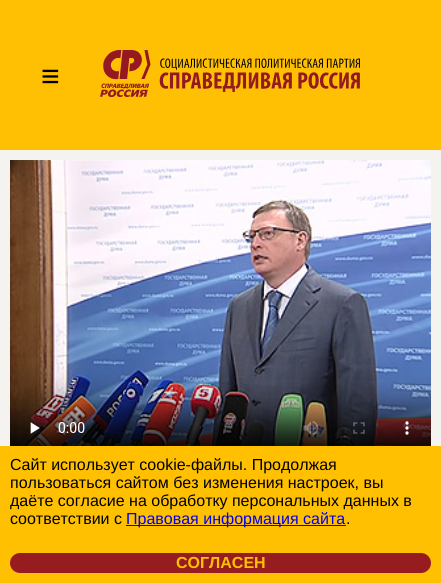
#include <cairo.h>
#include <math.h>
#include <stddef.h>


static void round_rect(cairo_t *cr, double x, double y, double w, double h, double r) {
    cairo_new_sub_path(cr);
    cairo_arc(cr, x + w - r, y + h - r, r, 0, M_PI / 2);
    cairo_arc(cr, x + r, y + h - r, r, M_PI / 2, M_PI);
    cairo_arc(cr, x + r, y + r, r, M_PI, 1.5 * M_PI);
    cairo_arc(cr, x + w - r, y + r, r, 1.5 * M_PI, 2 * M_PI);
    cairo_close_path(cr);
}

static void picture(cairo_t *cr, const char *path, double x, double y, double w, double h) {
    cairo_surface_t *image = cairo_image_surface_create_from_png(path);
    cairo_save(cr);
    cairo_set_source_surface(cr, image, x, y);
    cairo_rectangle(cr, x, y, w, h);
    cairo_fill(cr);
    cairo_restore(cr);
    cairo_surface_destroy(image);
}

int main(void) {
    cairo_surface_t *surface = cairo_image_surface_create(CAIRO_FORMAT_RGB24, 441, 583);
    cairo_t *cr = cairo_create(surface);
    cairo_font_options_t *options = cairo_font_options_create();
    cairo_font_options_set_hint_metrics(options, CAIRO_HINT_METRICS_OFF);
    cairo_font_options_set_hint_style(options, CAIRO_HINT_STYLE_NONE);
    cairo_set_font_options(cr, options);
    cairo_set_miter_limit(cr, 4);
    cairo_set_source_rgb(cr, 0.957, 0.953, 0.937);
    cairo_paint(cr);
    cairo_set_source_rgb(cr, 1, 0.753, 0.012);
    cairo_rectangle(cr, 0, 0, 441, 150);
    cairo_fill(cr);
    cairo_select_font_face(cr, "Liberation Sans", CAIRO_FONT_SLANT_NORMAL, CAIRO_FONT_WEIGHT_NORMAL);
    cairo_set_font_size(cr, 32);
    cairo_set_source_rgb(cr, 0, 0, 0);
    cairo_move_to(cr, 41, 87);
    cairo_show_text(cr, "≡");
    picture(cr, "img1.png", 100, 50, 260, 47);
    picture(cr, "img2.png", 10, 160, 421, 286);
    cairo_set_source_rgb(cr, 1, 0.753, 0.008);
    cairo_rectangle(cr, 0, 446, 441, 137);
    cairo_fill(cr);
    cairo_set_font_size(cr, 16);
    cairo_set_source_rgb(cr, 0, 0, 0);
    cairo_move_to(cr, 10, 470);
    cairo_show_text(cr, "Сайт использует cookie-файлы. Продолжая");
    cairo_move_to(cr, 10, 488);
    cairo_show_text(cr, "пользоваться сайтом без изменения настроек, вы");
    cairo_move_to(cr, 10, 506);
    cairo_show_text(cr, "даёте согласие на обработку персональных данных в");
    cairo_move_to(cr, 10, 524);
    cairo_show_text(cr, "соответствии с");
    cairo_set_source_rgb(cr, 0, 0, 0.933);
    cairo_rectangle(cr, 126, 525, 220, 1);
    cairo_fill(cr);
    cairo_move_to(cr, 126, 524);
    cairo_show_text(cr, "Правовая информация сайта");
    cairo_set_source_rgb(cr, 0, 0, 0);
    cairo_move_to(cr, 346, 524);
    cairo_show_text(cr, ".");
    cairo_set_source_rgb(cr, 0.588, 0.11, 0.125);
    round_rect(cr, 10, 553, 421, 20, 10);
    cairo_fill(cr);
    cairo_select_font_face(cr, "Liberation Sans", CAIRO_FONT_SLANT_NORMAL, CAIRO_FONT_WEIGHT_BOLD);
    cairo_set_source_rgb(cr, 1, 0.753, 0.008);
    cairo_move_to(cr, 176, 568);
    cairo_show_text(cr, "СОГЛАСЕН");
    cairo_surface_write_to_png(surface, "page.png");
    cairo_font_options_destroy(options);
    cairo_destroy(cr);
    cairo_surface_destroy(surface);
    return 0;
}
